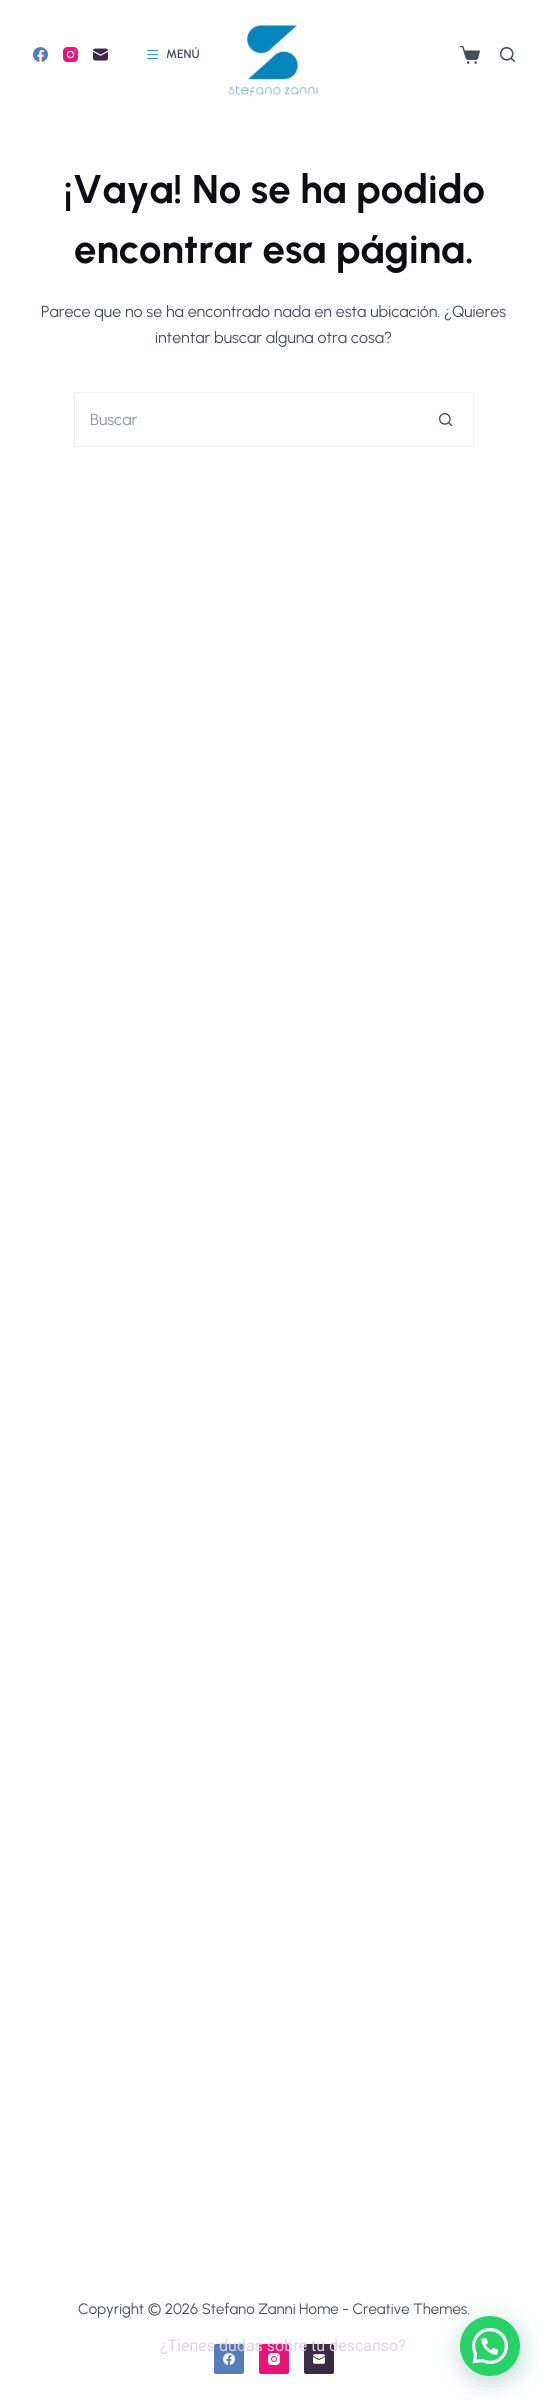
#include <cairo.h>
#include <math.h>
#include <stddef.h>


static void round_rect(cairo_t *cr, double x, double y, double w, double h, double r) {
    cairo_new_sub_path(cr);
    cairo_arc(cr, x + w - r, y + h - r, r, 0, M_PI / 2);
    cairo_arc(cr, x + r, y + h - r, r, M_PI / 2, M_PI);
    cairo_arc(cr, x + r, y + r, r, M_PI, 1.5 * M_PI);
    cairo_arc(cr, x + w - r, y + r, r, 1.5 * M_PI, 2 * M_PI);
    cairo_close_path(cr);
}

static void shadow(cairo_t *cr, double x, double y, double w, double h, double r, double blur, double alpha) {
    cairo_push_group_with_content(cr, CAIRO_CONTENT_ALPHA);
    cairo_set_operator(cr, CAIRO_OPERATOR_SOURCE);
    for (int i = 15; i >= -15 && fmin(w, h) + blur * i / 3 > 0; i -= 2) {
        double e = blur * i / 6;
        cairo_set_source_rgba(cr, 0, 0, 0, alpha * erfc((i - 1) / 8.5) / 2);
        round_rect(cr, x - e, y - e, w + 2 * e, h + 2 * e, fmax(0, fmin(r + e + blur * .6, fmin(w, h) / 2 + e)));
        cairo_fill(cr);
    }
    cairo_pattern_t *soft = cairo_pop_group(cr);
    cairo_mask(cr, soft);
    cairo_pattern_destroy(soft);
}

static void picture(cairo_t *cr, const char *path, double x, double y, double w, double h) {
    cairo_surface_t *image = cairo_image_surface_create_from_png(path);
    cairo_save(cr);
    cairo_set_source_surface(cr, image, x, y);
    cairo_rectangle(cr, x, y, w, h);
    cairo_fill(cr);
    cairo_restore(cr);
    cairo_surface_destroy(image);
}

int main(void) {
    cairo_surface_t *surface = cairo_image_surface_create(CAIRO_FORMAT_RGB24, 548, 2404);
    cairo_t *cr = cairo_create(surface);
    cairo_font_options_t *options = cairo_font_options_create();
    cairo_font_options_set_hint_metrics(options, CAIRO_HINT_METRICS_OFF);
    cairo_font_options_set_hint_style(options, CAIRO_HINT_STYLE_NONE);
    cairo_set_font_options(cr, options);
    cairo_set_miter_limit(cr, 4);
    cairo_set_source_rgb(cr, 1, 1, 1);
    cairo_paint(cr);
    picture(cr, "img1.png", 33, 47, 15, 15);
    picture(cr, "img2.png", 63, 47, 15, 15);
    picture(cr, "img3.png", 93, 48, 15, 13);
    cairo_set_source_rgb(cr, 0.149, 0.592, 0.933);
    round_rect(cr, 147, 50, 11, 1, 0.5);
    cairo_fill(cr);
    round_rect(cr, 147, 54, 11, 1, 0.5);
    cairo_fill(cr);
    round_rect(cr, 147, 58, 11, 1, 0.5);
    cairo_fill(cr);
    cairo_select_font_face(cr, "Urbanist SemiBold", CAIRO_FONT_SLANT_NORMAL, CAIRO_FONT_WEIGHT_NORMAL);
    cairo_set_font_size(cr, 12);
    cairo_set_source_rgb(cr, 0.263, 0.31, 0.345);
    cairo_move_to(cr, 166, 58);
    cairo_show_text(cr, "MENÚ");
    picture(cr, "img4.png", 228, 24, 90, 73);
    picture(cr, "img5.png", 460, 45, 20, 19);
    picture(cr, "img6.png", 500, 47, 15, 15);
    cairo_select_font_face(cr, "Urbanist", CAIRO_FONT_SLANT_NORMAL, CAIRO_FONT_WEIGHT_BOLD);
    cairo_set_font_size(cr, 40);
    cairo_set_source_rgb(cr, 0.055, 0.051, 0.071);
    cairo_move_to(cr, 64, 203);
    cairo_show_text(cr, "¡Vaya! No se ha podido");
    cairo_move_to(cr, 74, 263);
    cairo_show_text(cr, "encontrar esa página.");
    cairo_select_font_face(cr, "Urbanist", CAIRO_FONT_SLANT_NORMAL, CAIRO_FONT_WEIGHT_NORMAL);
    cairo_set_font_size(cr, 16);
    cairo_set_source_rgb(cr, 0.263, 0.31, 0.345);
    cairo_move_to(cr, 41, 317);
    cairo_show_text(cr, "Parece que no se ha encontrado nada en esta ubicación. ¿Quieres");
    cairo_move_to(cr, 155, 343);
    cairo_show_text(cr, "intentar buscar alguna otra cosa?");
    cairo_set_source_rgb(cr, 0.945, 0.945, 0.945);
    cairo_rectangle(cr, 74, 392, 400, 1);
    cairo_fill(cr);
    cairo_rectangle(cr, 74, 446, 345, 1);
    cairo_fill(cr);
    cairo_rectangle(cr, 74, 392, 1, 55);
    cairo_fill(cr);
    cairo_set_source_rgb(cr, 0.557, 0.584, 0.608);
    cairo_move_to(cr, 90, 425);
    cairo_show_text(cr, "Buscar");
    cairo_set_source_rgb(cr, 0.945, 0.945, 0.945);
    cairo_rectangle(cr, 473, 392, 1, 55);
    cairo_fill(cr);
    cairo_rectangle(cr, 419, 446, 55, 1);
    cairo_fill(cr);
    picture(cr, "img7.png", 439, 413, 13, 13);
    cairo_set_font_size(cr, 15);
    cairo_set_source_rgb(cr, 0.263, 0.31, 0.345);
    cairo_move_to(cr, 78, 2314);
    cairo_show_text(cr, "Copyright © 2026 Stefano Zanni Home - Creative Themes.");
    cairo_set_source_rgb(cr, 0.333, 0.49, 0.737);
    round_rect(cr, 214, 2344, 30, 30, 2);
    cairo_fill(cr);
    picture(cr, "img8.png", 223, 2353, 12, 12);
    cairo_set_source_rgb(cr, 0.929, 0.075, 0.463);
    round_rect(cr, 259, 2344, 30, 30, 2);
    cairo_fill(cr);
    picture(cr, "img9.png", 268, 2353, 12, 12);
    cairo_set_source_rgb(cr, 0.224, 0.173, 0.267);
    round_rect(cr, 304, 2344, 30, 30, 2);
    cairo_fill(cr);
    picture(cr, "img10.png", 313, 2354, 12, 10);
    cairo_set_source_rgb(cr, 0.027, 0.369, 0.329);
    shadow(cr, 461, 2322, 60, 60, 30, 12, 0.24);
    cairo_set_source_rgb(cr, 0.145, 0.827, 0.4);
    cairo_arc(cr, 490, 2346, 30, 0, 2 * M_PI);
    cairo_fill(cr);
    picture(cr, "img11.png", 472, 2328, 36, 36);
    cairo_select_font_face(cr, "Roboto", CAIRO_FONT_SLANT_NORMAL, CAIRO_FONT_WEIGHT_NORMAL);
    cairo_set_font_size(cr, 16);
    cairo_set_source_rgb(cr, 0.882, 0.82, 0.878);
    cairo_move_to(cr, 160, 2351);
    cairo_show_text(cr, "¿Tienes dudas sobre tu descanso?");
    cairo_surface_write_to_png(surface, "page.png");
    cairo_font_options_destroy(options);
    cairo_destroy(cr);
    cairo_surface_destroy(surface);
    return 0;
}
